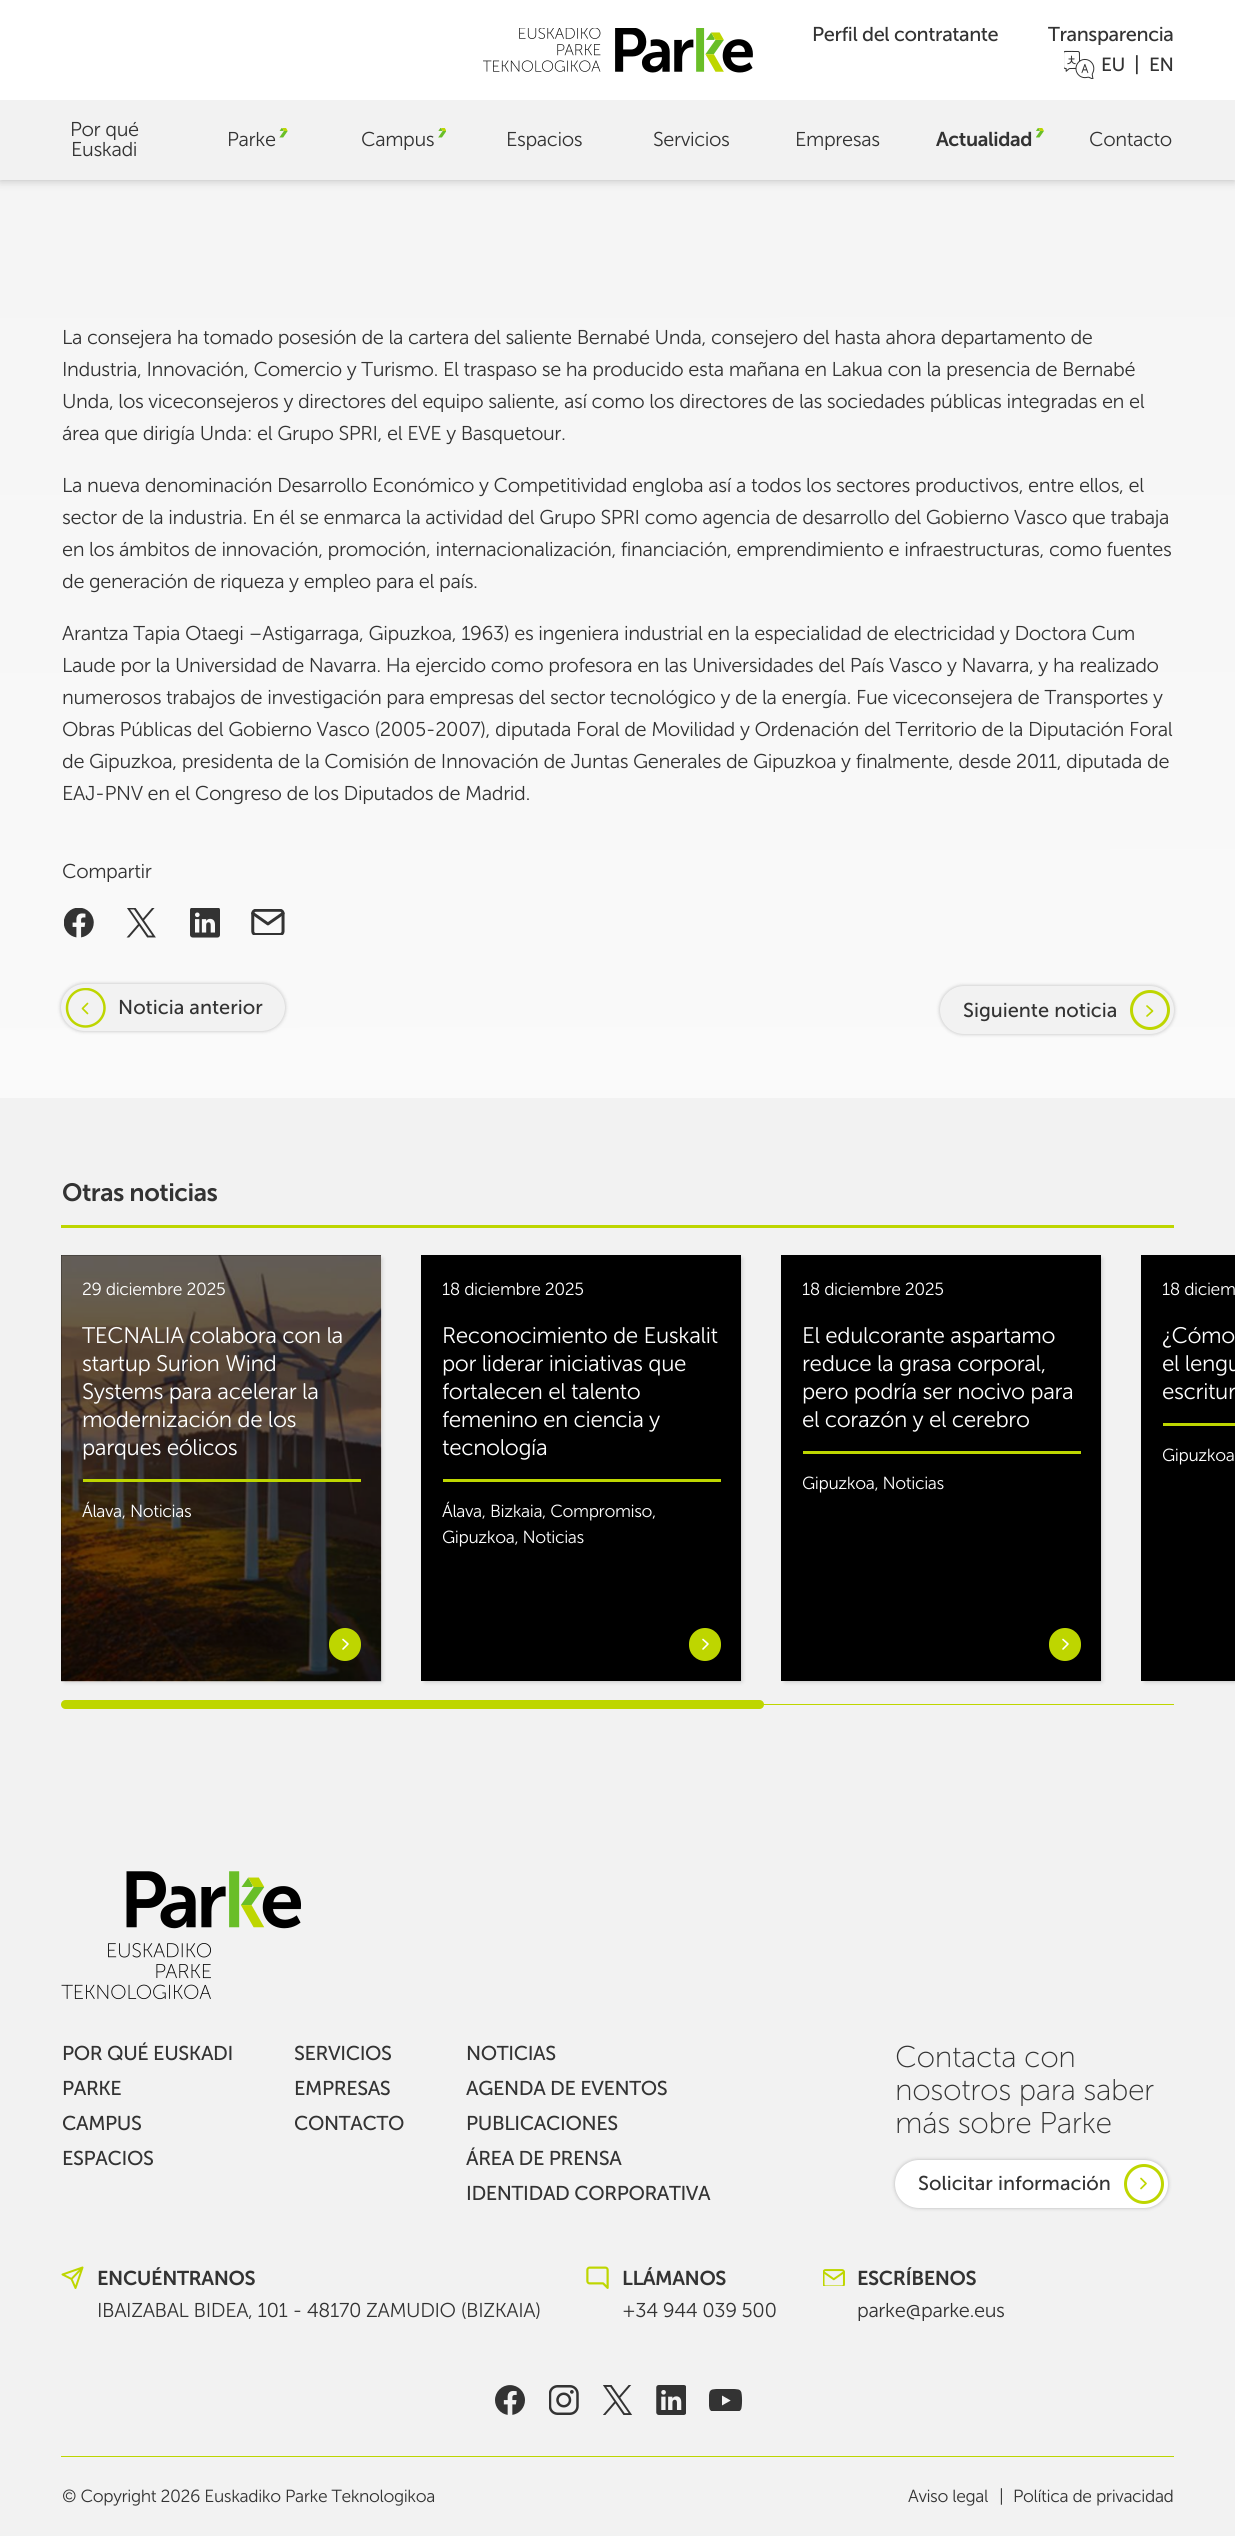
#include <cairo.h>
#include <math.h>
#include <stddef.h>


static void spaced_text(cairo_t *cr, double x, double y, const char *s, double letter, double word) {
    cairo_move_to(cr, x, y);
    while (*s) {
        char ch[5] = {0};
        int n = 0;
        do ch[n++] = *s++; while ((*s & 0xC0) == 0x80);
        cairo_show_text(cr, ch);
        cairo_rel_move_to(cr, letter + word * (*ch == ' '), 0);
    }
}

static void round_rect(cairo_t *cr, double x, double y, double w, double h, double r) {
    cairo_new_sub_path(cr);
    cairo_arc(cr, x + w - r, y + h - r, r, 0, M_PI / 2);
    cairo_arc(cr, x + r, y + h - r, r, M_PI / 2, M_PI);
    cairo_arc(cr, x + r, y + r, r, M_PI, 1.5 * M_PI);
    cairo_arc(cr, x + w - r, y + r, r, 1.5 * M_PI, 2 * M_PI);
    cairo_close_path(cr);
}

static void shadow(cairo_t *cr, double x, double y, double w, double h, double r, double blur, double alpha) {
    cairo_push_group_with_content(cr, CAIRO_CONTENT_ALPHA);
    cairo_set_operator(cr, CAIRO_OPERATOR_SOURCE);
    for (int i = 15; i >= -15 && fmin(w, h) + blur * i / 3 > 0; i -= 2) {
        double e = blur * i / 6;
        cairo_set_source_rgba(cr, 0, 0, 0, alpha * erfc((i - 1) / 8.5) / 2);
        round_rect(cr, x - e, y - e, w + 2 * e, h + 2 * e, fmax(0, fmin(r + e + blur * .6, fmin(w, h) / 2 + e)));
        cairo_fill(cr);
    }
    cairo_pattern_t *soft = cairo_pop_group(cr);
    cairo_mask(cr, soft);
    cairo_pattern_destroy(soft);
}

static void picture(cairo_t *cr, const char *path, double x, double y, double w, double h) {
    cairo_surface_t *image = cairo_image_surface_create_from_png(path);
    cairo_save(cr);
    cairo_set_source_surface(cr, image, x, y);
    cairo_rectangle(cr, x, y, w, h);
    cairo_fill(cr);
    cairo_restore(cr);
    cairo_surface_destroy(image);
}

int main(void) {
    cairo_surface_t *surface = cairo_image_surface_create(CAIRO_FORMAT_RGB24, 1235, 2536);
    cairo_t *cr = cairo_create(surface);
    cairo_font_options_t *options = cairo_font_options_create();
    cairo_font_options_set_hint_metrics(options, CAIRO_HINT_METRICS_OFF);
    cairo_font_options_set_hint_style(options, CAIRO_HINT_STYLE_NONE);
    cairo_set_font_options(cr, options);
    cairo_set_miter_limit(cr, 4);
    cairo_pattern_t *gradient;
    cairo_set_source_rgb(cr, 1, 1, 1);
    cairo_paint(cr);
    gradient = cairo_pattern_create_linear(617, -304, 618, 1098);
    cairo_pattern_add_color_stop_rgba(gradient, 0, 0.949, 0.949, 0.949, 1);
    cairo_pattern_add_color_stop_rgba(gradient, 1, 0.98, 0.98, 0.98, 1);
    cairo_set_source(cr, gradient);
    cairo_pattern_destroy(gradient);
    cairo_rectangle(cr, 0, 180, 1235, 918);
    cairo_fill(cr);
    cairo_set_source_rgb(cr, 0, 0, 0);
    shadow(cr, 0, 0, 1235, 180, 0, 5, 0.25);
    cairo_set_source_rgb(cr, 1, 1, 1);
    cairo_rectangle(cr, 0, 0, 1235, 100);
    cairo_fill(cr);
    picture(cr, "img1.png", 483, 28, 270, 45);
    cairo_select_font_face(cr, "Museo Sans", CAIRO_FONT_SLANT_NORMAL, CAIRO_FONT_WEIGHT_NORMAL);
    cairo_set_font_size(cr, 20);
    cairo_set_source_rgb(cr, 0.2, 0.2, 0.2);
    spaced_text(cr, 812, 41, "Perfil del contratante", -0.4, 0);
    spaced_text(cr, 1048, 41, "Transparencia", -0.4, 0);
    picture(cr, "img2.png", 1064, 50, 31, 29);
    cairo_set_font_size(cr, 19);
    spaced_text(cr, 1101, 71, "EU", -0.4, 0);
    cairo_set_font_size(cr, 20);
    spaced_text(cr, 1134, 71, "|", -0.4, 0);
    cairo_set_font_size(cr, 19);
    spaced_text(cr, 1149, 71, "EN", -0.4, 0);
    cairo_set_source_rgb(cr, 0.949, 0.949, 0.949);
    cairo_rectangle(cr, 0, 100, 1235, 80);
    cairo_fill(cr);
    cairo_select_font_face(cr, "Museo Sans Light", CAIRO_FONT_SLANT_NORMAL, CAIRO_FONT_WEIGHT_NORMAL);
    cairo_set_font_size(cr, 20);
    cairo_set_source_rgb(cr, 0.2, 0.2, 0.2);
    spaced_text(cr, 70, 136, "Por qué", -0.4, 0);
    spaced_text(cr, 71, 156, "Euskadi", -0.4, 0);
    spaced_text(cr, 227, 146, "Parke", -0.4, 0);
    picture(cr, "img3.png", 279, 128, 9, 10);
    spaced_text(cr, 361, 146, "Campus", -0.4, 0);
    picture(cr, "img4.png", 438, 128, 8, 10);
    spaced_text(cr, 506, 146, "Espacios", -0.4, 0);
    spaced_text(cr, 653, 146, "Servicios", -0.4, 0);
    spaced_text(cr, 795, 146, "Empresas", -0.4, 0);
    cairo_select_font_face(cr, "Museo Sans SemiBold", CAIRO_FONT_SLANT_NORMAL, CAIRO_FONT_WEIGHT_NORMAL);
    spaced_text(cr, 936, 146, "Actualidad", -0.4, 0);
    picture(cr, "img5.png", 1036, 128, 8, 10);
    cairo_select_font_face(cr, "Museo Sans Light", CAIRO_FONT_SLANT_NORMAL, CAIRO_FONT_WEIGHT_NORMAL);
    spaced_text(cr, 1089, 146, "Contacto", -0.4, 0);
    spaced_text(cr, 62, 344, "La consejera ha tomado posesión de la cartera del saliente Bernabé Unda, consejero del hasta ahora departamento de", -0.4, 0);
    spaced_text(cr, 62, 376, "Industria, Innovación, Comercio y Turismo. El traspaso se ha producido esta mañana en Lakua con la presencia de Bernabé", -0.4, 0);
    spaced_text(cr, 62, 408, "Unda, los viceconsejeros y directores del equipo saliente, así como los directores de las sociedades públicas integradas en el", -0.4, 0);
    spaced_text(cr, 62, 440, "área que dirigía Unda: el Grupo SPRI, el EVE y Basquetour.", -0.4, 0);
    spaced_text(cr, 62, 492, "La nueva denominación Desarrollo Económico y Competitividad engloba así a todos los sectores productivos, entre ellos, el", -0.4, 0);
    spaced_text(cr, 62, 524, "sector de la industria. En él se enmarca la actividad del Grupo SPRI como agencia de desarrollo del Gobierno Vasco que trabaja", -0.4, 0);
    spaced_text(cr, 62, 556, "en los ámbitos de innovación, promoción, internacionalización, financiación, emprendimiento e infraestructuras, como fuentes", -0.4, 0);
    spaced_text(cr, 62, 588, "de generación de riqueza y empleo para el país.", -0.4, 0);
    spaced_text(cr, 62, 640, "Arantza Tapia Otaegi –Astigarraga, Gipuzkoa, 1963) es ingeniera industrial en la especialidad de electricidad y Doctora Cum", -0.4, 0);
    spaced_text(cr, 62, 672, "Laude por la Universidad de Navarra. Ha ejercido como profesora en las Universidades del País Vasco y Navarra, y ha realizado", -0.4, 0);
    spaced_text(cr, 62, 704, "numerosos trabajos de investigación para empresas del sector tecnológico y de la energía. Fue viceconsejera de Transportes y", -0.4, 0);
    spaced_text(cr, 62, 736, "Obras Públicas del Gobierno Vasco (2005-2007), diputada Foral de Movilidad y Ordenación del Territorio de la Diputación Foral", -0.4, 0);
    spaced_text(cr, 62, 768, "de Gipuzkoa, presidenta de la Comisión de Innovación de Juntas Generales de Gipuzkoa y finalmente, desde 2011, diputada de", -0.4, 0);
    spaced_text(cr, 62, 800, "EAJ-PNV en el Congreso de los Diputados de Madrid.", -0.4, 0);
    spaced_text(cr, 62, 878, "Compartir", -0.4, 0);
    picture(cr, "img6.png", 64, 908, 30, 30);
    picture(cr, "img7.png", 126, 908, 30, 30);
    picture(cr, "img8.png", 190, 908, 30, 30);
    picture(cr, "img9.png", 251, 909, 34, 26);
    cairo_set_source_rgb(cr, 0, 0, 0);
    shadow(cr, 61, 984, 224, 47, 23.5, 2, 0.25);
    cairo_set_source_rgb(cr, 0.949, 0.949, 0.949);
    round_rect(cr, 63, 986, 220, 43, 21.5);
    cairo_fill_preserve(cr);
    cairo_set_line_width(cr, 4);
    cairo_stroke(cr);
    cairo_new_path(cr);
    cairo_move_to(cr, 87.5, 1003.5);
    cairo_line_to(cr, 82.5, 1008.5);
    cairo_line_to(cr, 87.5, 1013.5);
    cairo_set_source_rgb(cr, 0.745, 0.839, 0);
    cairo_set_line_width(cr, 1.7);
    cairo_set_line_cap(cr, CAIRO_LINE_CAP_ROUND);
    cairo_set_line_join(cr, CAIRO_LINE_JOIN_ROUND);
    cairo_stroke(cr);
    cairo_save(cr);
    round_rect(cr, 65, 988, 216, 40, 20);
    cairo_clip(cr);
    cairo_new_path(cr);
    cairo_move_to(cr, 85.5, 989);
    cairo_curve_to(cr, 75, 989, 67, 997.5, 67, 1008);
    cairo_curve_to(cr, 67, 1018, 75, 1026.5, 85.5, 1026.5);
    cairo_curve_to(cr, 96, 1026.5, 104.5, 1018, 104.5, 1008);
    cairo_curve_to(cr, 104.5, 997.5, 96, 989, 85.5, 989);
    cairo_close_path(cr);
    cairo_set_line_width(cr, 2.5);
    cairo_set_line_cap(cr, CAIRO_LINE_CAP_BUTT);
    cairo_set_line_join(cr, CAIRO_LINE_JOIN_MITER);
    cairo_stroke(cr);
    cairo_restore(cr);
    cairo_select_font_face(cr, "Museo Sans", CAIRO_FONT_SLANT_NORMAL, CAIRO_FONT_WEIGHT_NORMAL);
    cairo_set_source_rgb(cr, 0.2, 0.2, 0.2);
    cairo_move_to(cr, 118, 1014);
    cairo_show_text(cr, "Noticia anterior");
    cairo_set_source_rgb(cr, 0, 0, 0);
    shadow(cr, 940, 986, 234, 48, 24, 2, 0.25);
    cairo_set_source_rgb(cr, 0.949, 0.949, 0.949);
    round_rect(cr, 942, 988, 230, 44, 22);
    cairo_fill_preserve(cr);
    cairo_set_line_width(cr, 4);
    cairo_set_line_cap(cr, CAIRO_LINE_CAP_BUTT);
    cairo_set_line_join(cr, CAIRO_LINE_JOIN_MITER);
    cairo_stroke(cr);
    cairo_set_source_rgb(cr, 0.2, 0.2, 0.2);
    cairo_move_to(cr, 963, 1017);
    cairo_show_text(cr, "Siguiente noticia");
    cairo_new_path(cr);
    cairo_move_to(cr, 1147, 1006);
    cairo_line_to(cr, 1152.5, 1011);
    cairo_line_to(cr, 1147, 1016);
    cairo_set_source_rgb(cr, 0.745, 0.839, 0);
    cairo_set_line_width(cr, 1.7);
    cairo_set_line_cap(cr, CAIRO_LINE_CAP_ROUND);
    cairo_set_line_join(cr, CAIRO_LINE_JOIN_ROUND);
    cairo_stroke(cr);
    cairo_arc(cr, 1150, 1010, 18.5, 0, 2 * M_PI);
    cairo_set_line_width(cr, 3);
    cairo_set_line_cap(cr, CAIRO_LINE_CAP_BUTT);
    cairo_set_line_join(cr, CAIRO_LINE_JOIN_MITER);
    cairo_stroke(cr);
    cairo_set_source_rgb(cr, 0.949, 0.949, 0.949);
    cairo_rectangle(cr, 0, 1098, 1235, 1438);
    cairo_fill(cr);
    cairo_set_source_rgb(cr, 0.745, 0.839, 0);
    cairo_rectangle(cr, 61, 1225, 1113, 3);
    cairo_fill(cr);
    cairo_select_font_face(cr, "Museo Sans SemiBold", CAIRO_FONT_SLANT_NORMAL, CAIRO_FONT_WEIGHT_NORMAL);
    cairo_set_font_size(cr, 25);
    cairo_set_source_rgb(cr, 0.2, 0.2, 0.2);
    spaced_text(cr, 62, 1201, "Otras noticias", -0.5, 0);
    cairo_set_source_rgb(cr, 0, 0, 0);
    shadow(cr, 65, 1259, 316, 422, 0, 2.5, 0.25);
    cairo_set_source_rgb(cr, 0, 0, 0);
    cairo_rectangle(cr, 61, 1255, 320, 426);
    cairo_fill(cr);
    picture(cr, "img10.png", 61, 1255, 321, 427);
    cairo_select_font_face(cr, "Museo Sans Light", CAIRO_FONT_SLANT_NORMAL, CAIRO_FONT_WEIGHT_NORMAL);
    cairo_set_font_size(cr, 17.5);
    cairo_set_source_rgb(cr, 1, 1, 1);
    spaced_text(cr, 82, 1295, "29 diciembre 2025", -0.4, 0);
    cairo_set_source_rgb(cr, 0.745, 0.839, 0);
    cairo_rectangle(cr, 83, 1479, 278, 3);
    cairo_fill(cr);
    cairo_set_font_size(cr, 22.5);
    cairo_set_source_rgb(cr, 1, 1, 1);
    spaced_text(cr, 82, 1343, "TECNALIA colabora con la", -0.4, 0);
    spaced_text(cr, 82, 1371, "startup Surion Wind", -0.4, 0);
    spaced_text(cr, 82, 1399, "Systems para acelerar la", -0.4, 0);
    spaced_text(cr, 82, 1427, "modernización de los", -0.4, 0);
    spaced_text(cr, 82, 1455, "parques eólicos", -0.4, 0);
    cairo_set_font_size(cr, 17.5);
    spaced_text(cr, 82, 1517, "Álava, Noticias", -0.4, 0);
    cairo_set_source_rgb(cr, 0.745, 0.839, 0);
    round_rect(cr, 329, 1628, 32, 33, 16);
    cairo_fill(cr);
    cairo_new_path(cr);
    cairo_move_to(cr, 343, 1639.5);
    cairo_line_to(cr, 348, 1644);
    cairo_line_to(cr, 343, 1649);
    cairo_set_source_rgb(cr, 1, 1, 1);
    cairo_set_line_width(cr, 1.6);
    cairo_set_line_cap(cr, CAIRO_LINE_CAP_ROUND);
    cairo_set_line_join(cr, CAIRO_LINE_JOIN_ROUND);
    cairo_stroke(cr);
    cairo_set_source_rgb(cr, 0, 0, 0);
    shadow(cr, 425, 1259, 316, 422, 0, 2.5, 0.25);
    cairo_set_source_rgb(cr, 0, 0, 0);
    cairo_rectangle(cr, 421, 1255, 320, 426);
    cairo_fill(cr);
    cairo_set_source_rgb(cr, 1, 1, 1);
    spaced_text(cr, 442, 1295, "18 diciembre 2025", -0.4, 0);
    cairo_set_source_rgb(cr, 0.745, 0.839, 0);
    cairo_rectangle(cr, 443, 1479, 278, 3);
    cairo_fill(cr);
    cairo_set_font_size(cr, 22.5);
    cairo_set_source_rgb(cr, 1, 1, 1);
    spaced_text(cr, 442, 1343, "Reconocimiento de Euskalit", -0.4, 0);
    spaced_text(cr, 442, 1371, "por liderar iniciativas que", -0.4, 0);
    spaced_text(cr, 442, 1399, "fortalecen el talento", -0.4, 0);
    spaced_text(cr, 442, 1427, "femenino en ciencia y", -0.4, 0);
    spaced_text(cr, 442, 1455, "tecnología", -0.4, 0);
    cairo_set_font_size(cr, 17.5);
    spaced_text(cr, 442, 1517, "Álava, Bizkaia, Compromiso,", -0.4, 0);
    spaced_text(cr, 442, 1543, "Gipuzkoa, Noticias", -0.4, 0);
    cairo_set_source_rgb(cr, 0.745, 0.839, 0);
    round_rect(cr, 689, 1628, 32, 33, 16);
    cairo_fill(cr);
    cairo_new_path(cr);
    cairo_move_to(cr, 703, 1639.5);
    cairo_line_to(cr, 708, 1644);
    cairo_line_to(cr, 703, 1649);
    cairo_set_source_rgb(cr, 1, 1, 1);
    cairo_stroke(cr);
    cairo_set_source_rgb(cr, 0, 0, 0);
    shadow(cr, 785, 1259, 316, 422, 0, 2.5, 0.25);
    cairo_set_source_rgb(cr, 0, 0, 0);
    cairo_rectangle(cr, 781, 1255, 320, 426);
    cairo_fill(cr);
    cairo_set_source_rgb(cr, 1, 1, 1);
    spaced_text(cr, 802, 1295, "18 diciembre 2025", -0.4, 0);
    cairo_set_source_rgb(cr, 0.745, 0.839, 0);
    cairo_rectangle(cr, 803, 1451, 278, 3);
    cairo_fill(cr);
    cairo_set_font_size(cr, 22.5);
    cairo_set_source_rgb(cr, 1, 1, 1);
    spaced_text(cr, 802, 1343, "El edulcorante aspartamo", -0.4, 0);
    spaced_text(cr, 802, 1371, "reduce la grasa corporal,", -0.4, 0);
    spaced_text(cr, 802, 1399, "pero podría ser nocivo para", -0.4, 0);
    spaced_text(cr, 802, 1427, "el corazón y el cerebro", -0.4, 0);
    cairo_set_font_size(cr, 17.5);
    spaced_text(cr, 802, 1489, "Gipuzkoa, Noticias", -0.4, 0);
    cairo_set_source_rgb(cr, 0.745, 0.839, 0);
    round_rect(cr, 1049, 1628, 32, 33, 16);
    cairo_fill(cr);
    cairo_new_path(cr);
    cairo_move_to(cr, 1063, 1639.5);
    cairo_line_to(cr, 1068, 1644);
    cairo_line_to(cr, 1063, 1649);
    cairo_set_source_rgb(cr, 1, 1, 1);
    cairo_stroke(cr);
    cairo_set_source_rgb(cr, 0, 0, 0);
    shadow(cr, 1145, 1259, 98, 422, 0, 2.5, 0.25);
    cairo_set_source_rgb(cr, 0, 0, 0);
    cairo_rectangle(cr, 1141, 1255, 94, 426);
    cairo_fill(cr);
    cairo_set_source_rgb(cr, 1, 1, 1);
    spaced_text(cr, 1162, 1295, "18 diciem", -0.4, 0);
    cairo_set_source_rgb(cr, 0.745, 0.839, 0);
    cairo_rectangle(cr, 1163, 1423, 72, 3);
    cairo_fill(cr);
    cairo_set_font_size(cr, 22.5);
    cairo_set_source_rgb(cr, 1, 1, 1);
    spaced_text(cr, 1162, 1343, "¿Cómo", -0.4, 0);
    spaced_text(cr, 1162, 1371, "el lengu", -0.4, 0);
    spaced_text(cr, 1162, 1399, "escritur", -0.4, 0);
    cairo_set_font_size(cr, 17.5);
    spaced_text(cr, 1162, 1461, "Gipuzkoa", -0.4, 0);
    cairo_set_source_rgb(cr, 0.745, 0.839, 0);
    cairo_rectangle(cr, 61, 1704, 1113, 1);
    cairo_fill(cr);
    round_rect(cr, 61, 1700, 703, 9, 4.5);
    cairo_fill(cr);
    picture(cr, "img11.png", 61, 1871, 240, 129);
    cairo_select_font_face(cr, "Museo Sans", CAIRO_FONT_SLANT_NORMAL, CAIRO_FONT_WEIGHT_NORMAL);
    cairo_set_font_size(cr, 20);
    cairo_set_source_rgb(cr, 0.2, 0.2, 0.2);
    spaced_text(cr, 62, 2060, "POR QUÉ EUSKADI", -0.4, 0);
    spaced_text(cr, 62, 2095, "PARKE", -0.4, 0);
    spaced_text(cr, 62, 2130, "CAMPUS", -0.4, 0);
    spaced_text(cr, 62, 2165, "ESPACIOS", -0.4, 0);
    spaced_text(cr, 294, 2060, "SERVICIOS", -0.4, 0);
    spaced_text(cr, 294, 2095, "EMPRESAS", -0.4, 0);
    spaced_text(cr, 294, 2130, "CONTACTO", -0.4, 0);
    spaced_text(cr, 466, 2060, "NOTICIAS", -0.4, 0);
    spaced_text(cr, 466, 2095, "AGENDA DE EVENTOS", -0.4, 0);
    spaced_text(cr, 466, 2130, "PUBLICACIONES", -0.4, 0);
    spaced_text(cr, 466, 2165, "ÁREA DE PRENSA", -0.4, 0);
    spaced_text(cr, 466, 2200, "IDENTIDAD CORPORATIVA", -0.4, 0);
    cairo_select_font_face(cr, "Museo Sans ExtraLight", CAIRO_FONT_SLANT_NORMAL, CAIRO_FONT_WEIGHT_NORMAL);
    cairo_set_font_size(cr, 30);
    spaced_text(cr, 895, 2067, "Contacta con", -0.4, 0);
    spaced_text(cr, 895, 2100, "nosotros para saber", -0.4, 0);
    spaced_text(cr, 895, 2133, "más sobre Parke", -0.4, 0);
    cairo_set_source_rgb(cr, 0, 0, 0);
    shadow(cr, 895, 2160, 273, 48, 24, 2, 0.25);
    cairo_set_source_rgb(cr, 1, 1, 1);
    round_rect(cr, 897, 2162, 269, 44, 22);
    cairo_fill_preserve(cr);
    cairo_set_line_width(cr, 4);
    cairo_set_line_cap(cr, CAIRO_LINE_CAP_BUTT);
    cairo_set_line_join(cr, CAIRO_LINE_JOIN_MITER);
    cairo_stroke(cr);
    cairo_select_font_face(cr, "Museo Sans", CAIRO_FONT_SLANT_NORMAL, CAIRO_FONT_WEIGHT_NORMAL);
    cairo_set_font_size(cr, 20);
    cairo_set_source_rgb(cr, 0.2, 0.2, 0.2);
    cairo_move_to(cr, 918, 2190);
    cairo_show_text(cr, "Solicitar información");
    cairo_new_path(cr);
    cairo_move_to(cr, 1141, 2178.5);
    cairo_line_to(cr, 1146, 2183.5);
    cairo_line_to(cr, 1141, 2188.5);
    cairo_set_source_rgb(cr, 0.745, 0.839, 0);
    cairo_set_line_width(cr, 1.7);
    cairo_set_line_cap(cr, CAIRO_LINE_CAP_ROUND);
    cairo_set_line_join(cr, CAIRO_LINE_JOIN_ROUND);
    cairo_stroke(cr);
    cairo_arc(cr, 1144, 2184, 18.5, 0, 2 * M_PI);
    cairo_set_line_width(cr, 3);
    cairo_set_line_cap(cr, CAIRO_LINE_CAP_BUTT);
    cairo_set_line_join(cr, CAIRO_LINE_JOIN_MITER);
    cairo_stroke(cr);
    cairo_new_path(cr);
    cairo_move_to(cr, 82.5, 2267.5);
    cairo_line_to(cr, 71.5, 2279);
    cairo_move_to(cr, 82.5, 2267.5);
    cairo_line_to(cr, 75.5, 2288);
    cairo_line_to(cr, 71.5, 2279);
    cairo_line_to(cr, 62.5, 2274.5);
    cairo_close_path(cr);
    cairo_set_line_width(cr, 2);
    cairo_set_line_cap(cr, CAIRO_LINE_CAP_ROUND);
    cairo_set_line_join(cr, CAIRO_LINE_JOIN_ROUND);
    cairo_stroke(cr);
    cairo_select_font_face(cr, "Museo Sans SemiBold", CAIRO_FONT_SLANT_NORMAL, CAIRO_FONT_WEIGHT_NORMAL);
    cairo_set_source_rgb(cr, 0.2, 0.2, 0.2);
    spaced_text(cr, 97, 2285, "ENCUÉNTRANOS", -0.4, 0);
    cairo_select_font_face(cr, "Museo Sans Light", CAIRO_FONT_SLANT_NORMAL, CAIRO_FONT_WEIGHT_NORMAL);
    spaced_text(cr, 97, 2317, "IBAIZABAL BIDEA, 101 - 48170 ZAMUDIO (BIZKAIA)", -0.4, 0);
    picture(cr, "img12.png", 586, 2266, 23, 23);
    cairo_select_font_face(cr, "Museo Sans SemiBold", CAIRO_FONT_SLANT_NORMAL, CAIRO_FONT_WEIGHT_NORMAL);
    spaced_text(cr, 622, 2285, "LLÁMANOS", -0.4, 0);
    cairo_select_font_face(cr, "Museo Sans Light", CAIRO_FONT_SLANT_NORMAL, CAIRO_FONT_WEIGHT_NORMAL);
    spaced_text(cr, 622, 2317, "+34 944 039 500", -0.4, 0);
    picture(cr, "img13.png", 823, 2269, 22, 17);
    cairo_select_font_face(cr, "Museo Sans SemiBold", CAIRO_FONT_SLANT_NORMAL, CAIRO_FONT_WEIGHT_NORMAL);
    spaced_text(cr, 857, 2285, "ESCRÍBENOS", -0.4, 0);
    cairo_select_font_face(cr, "Museo Sans Light", CAIRO_FONT_SLANT_NORMAL, CAIRO_FONT_WEIGHT_NORMAL);
    spaced_text(cr, 857, 2317, "parke@parke.eus", -0.4, 0);
    picture(cr, "img14.png", 495, 2385, 30, 30);
    picture(cr, "img15.png", 549, 2385, 30, 30);
    picture(cr, "img16.png", 603, 2385, 30, 30);
    picture(cr, "img17.png", 656, 2385, 30, 30);
    picture(cr, "img18.png", 709, 2389, 34, 22);
    cairo_set_source_rgb(cr, 0.745, 0.839, 0);
    cairo_rectangle(cr, 61, 2456, 1113, 1);
    cairo_fill(cr);
    cairo_set_font_size(cr, 17.5);
    cairo_set_source_rgb(cr, 0.2, 0.2, 0.2);
    spaced_text(cr, 62, 2502, "© Copyright 2026 Euskadiko Parke Teknologikoa", -0.4, 0);
    spaced_text(cr, 908, 2502, "Aviso legal", -0.4, 0);
    spaced_text(cr, 999, 2502, "|", -0.4, 0);
    spaced_text(cr, 1013, 2502, "Política de privacidad", -0.4, 0);
    cairo_surface_write_to_png(surface, "page.png");
    cairo_font_options_destroy(options);
    cairo_destroy(cr);
    cairo_surface_destroy(surface);
    return 0;
}
